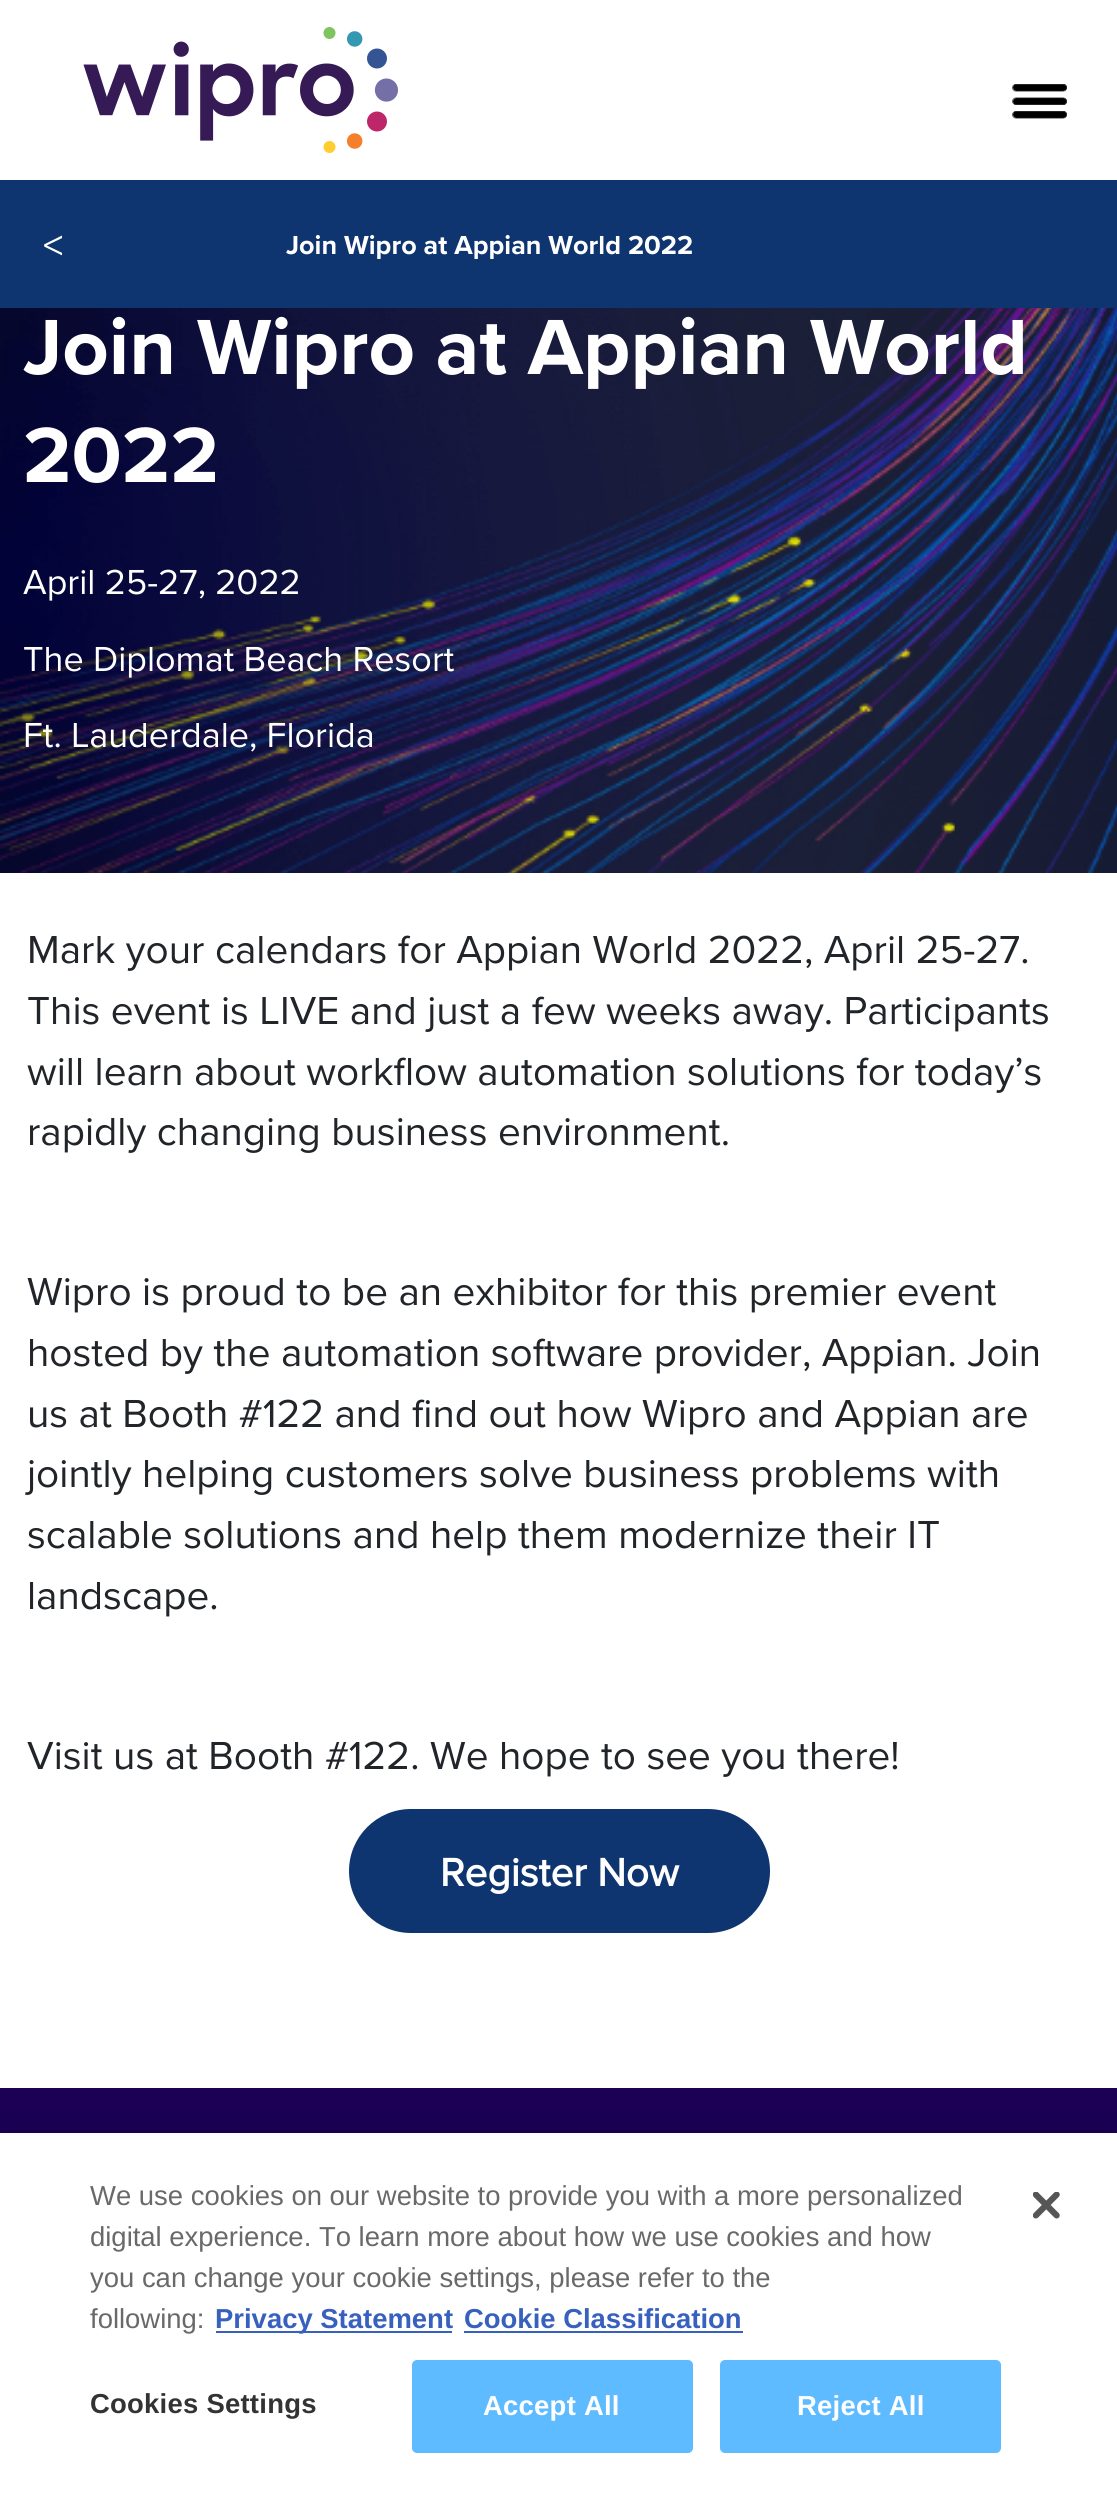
#include <cairo.h>
#include <math.h>
#include <stddef.h>


static void spaced_text(cairo_t *cr, double x, double y, const char *s, double letter, double word) {
    cairo_move_to(cr, x, y);
    while (*s) {
        char ch[5] = {0};
        int n = 0;
        do ch[n++] = *s++; while ((*s & 0xC0) == 0x80);
        cairo_show_text(cr, ch);
        cairo_rel_move_to(cr, letter + word * (*ch == ' '), 0);
    }
}

static void round_rect(cairo_t *cr, double x, double y, double w, double h, double r) {
    cairo_new_sub_path(cr);
    cairo_arc(cr, x + w - r, y + h - r, r, 0, M_PI / 2);
    cairo_arc(cr, x + r, y + h - r, r, M_PI / 2, M_PI);
    cairo_arc(cr, x + r, y + r, r, M_PI, 1.5 * M_PI);
    cairo_arc(cr, x + w - r, y + r, r, 1.5 * M_PI, 2 * M_PI);
    cairo_close_path(cr);
}

static void shadow(cairo_t *cr, double x, double y, double w, double h, double r, double blur, double alpha) {
    cairo_push_group_with_content(cr, CAIRO_CONTENT_ALPHA);
    cairo_set_operator(cr, CAIRO_OPERATOR_SOURCE);
    for (int i = 15; i >= -15 && fmin(w, h) + blur * i / 3 > 0; i -= 2) {
        double e = blur * i / 6;
        cairo_set_source_rgba(cr, 0, 0, 0, alpha * erfc((i - 1) / 8.5) / 2);
        round_rect(cr, x - e, y - e, w + 2 * e, h + 2 * e, fmax(0, fmin(r + e + blur * .6, fmin(w, h) / 2 + e)));
        cairo_fill(cr);
    }
    cairo_pattern_t *soft = cairo_pop_group(cr);
    cairo_mask(cr, soft);
    cairo_pattern_destroy(soft);
}

static void picture(cairo_t *cr, const char *path, double x, double y, double w, double h) {
    cairo_surface_t *image = cairo_image_surface_create_from_png(path);
    cairo_save(cr);
    cairo_set_source_surface(cr, image, x, y);
    cairo_rectangle(cr, x, y, w, h);
    cairo_fill(cr);
    cairo_restore(cr);
    cairo_surface_destroy(image);
}

int main(void) {
    cairo_surface_t *surface = cairo_image_surface_create(CAIRO_FORMAT_RGB24, 1117, 2494);
    cairo_t *cr = cairo_create(surface);
    cairo_font_options_t *options = cairo_font_options_create();
    cairo_font_options_set_hint_metrics(options, CAIRO_HINT_METRICS_OFF);
    cairo_font_options_set_hint_style(options, CAIRO_HINT_STYLE_NONE);
    cairo_set_font_options(cr, options);
    cairo_set_miter_limit(cr, 4);
    cairo_set_source_rgb(cr, 1, 1, 1);
    cairo_paint(cr);
    picture(cr, "img1.png", 83, 27, 315, 126);
    picture(cr, "img2.png", 1012, 84, 55, 35);
    cairo_set_source_rgb(cr, 0.055, 0.208, 0.439);
    cairo_rectangle(cr, 0, 180, 1117, 128);
    cairo_fill(cr);
    cairo_select_font_face(cr, "Proxima Nova", CAIRO_FONT_SLANT_NORMAL, CAIRO_FONT_WEIGHT_NORMAL);
    cairo_set_font_size(cr, 40.5);
    cairo_set_source_rgb(cr, 1, 1, 1);
    cairo_move_to(cr, 43, 259);
    cairo_show_text(cr, "<");
    cairo_select_font_face(cr, "Proxima Nova", CAIRO_FONT_SLANT_NORMAL, CAIRO_FONT_WEIGHT_BOLD);
    cairo_set_font_size(cr, 27);
    cairo_move_to(cr, 286, 254);
    cairo_show_text(cr, "Join Wipro at Appian World 2022");
    picture(cr, "img3.png", 0, 308, 1117, 565);
    cairo_set_font_size(cr, 81);
    cairo_move_to(cr, 23, 374);
    cairo_show_text(cr, "Join Wipro at Appian World");
    cairo_move_to(cr, 23, 482);
    cairo_show_text(cr, "2022");
    cairo_select_font_face(cr, "Proxima Nova", CAIRO_FONT_SLANT_NORMAL, CAIRO_FONT_WEIGHT_NORMAL);
    cairo_set_font_size(cr, 36);
    cairo_move_to(cr, 23, 594);
    cairo_show_text(cr, "April 25-27, 2022");
    cairo_move_to(cr, 23, 671);
    cairo_show_text(cr, "The Diplomat Beach Resort");
    cairo_move_to(cr, 23, 747);
    cairo_show_text(cr, "Ft. Lauderdale, Florida");
    cairo_set_font_size(cr, 40.5);
    cairo_set_source_rgb(cr, 0.129, 0.145, 0.161);
    cairo_move_to(cr, 27, 963);
    cairo_show_text(cr, "Mark your calendars for Appian World 2022, April 25-27.");
    cairo_move_to(cr, 27, 1024);
    cairo_show_text(cr, "This event is LIVE and just a few weeks away. Participants");
    cairo_move_to(cr, 27, 1085);
    cairo_show_text(cr, "will learn about workflow automation solutions for today’s");
    cairo_move_to(cr, 27, 1145);
    cairo_show_text(cr, "rapidly changing business environment.");
    cairo_move_to(cr, 27, 1305);
    cairo_show_text(cr, "Wipro is proud to be an exhibitor for this premier event");
    cairo_move_to(cr, 27, 1366);
    cairo_show_text(cr, "hosted by the automation software provider, Appian. Join");
    cairo_move_to(cr, 27, 1427);
    cairo_show_text(cr, "us at Booth #122 and find out how Wipro and Appian are");
    cairo_move_to(cr, 27, 1487);
    cairo_show_text(cr, "jointly helping customers solve business problems with");
    cairo_move_to(cr, 27, 1548);
    cairo_show_text(cr, "scalable solutions and help them modernize their IT");
    cairo_move_to(cr, 27, 1609);
    cairo_show_text(cr, "landscape.");
    cairo_move_to(cr, 27, 1769);
    cairo_show_text(cr, "Visit us at Booth #122. We hope to see you there!");
    cairo_set_source_rgb(cr, 0.055, 0.208, 0.439);
    round_rect(cr, 349, 1809, 421, 124, 62);
    cairo_fill(cr);
    cairo_select_font_face(cr, "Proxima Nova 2", CAIRO_FONT_SLANT_NORMAL, CAIRO_FONT_WEIGHT_BOLD);
    cairo_set_source_rgb(cr, 1, 1, 1);
    cairo_move_to(cr, 440, 1886);
    cairo_show_text(cr, "Register Now");
    cairo_set_source_rgb(cr, 0.106, 0, 0.337);
    cairo_rectangle(cr, 0, 2088, 1117, 45);
    cairo_fill(cr);
    cairo_set_source_rgb(cr, 0, 0, 0);
    shadow(cr, 0, 2133, 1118, 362, 0, 20, 0.2);
    cairo_set_source_rgb(cr, 1, 1, 1);
    cairo_rectangle(cr, 0, 2133, 1117, 361);
    cairo_fill(cr);
    cairo_select_font_face(cr, "Liberation Sans", CAIRO_FONT_SLANT_NORMAL, CAIRO_FONT_WEIGHT_NORMAL);
    cairo_set_font_size(cr, 27.45);
    cairo_set_source_rgb(cr, 0.412, 0.412, 0.412);
    cairo_move_to(cr, 90, 2205);
    cairo_show_text(cr, "We use cookies on our website to provide you with a more personalized");
    cairo_move_to(cr, 90, 2246);
    cairo_show_text(cr, "digital experience. To learn more about how we use cookies and how");
    cairo_move_to(cr, 90, 2287);
    cairo_show_text(cr, "you can change your cookie settings, please refer to the");
    cairo_move_to(cr, 90, 2328);
    cairo_show_text(cr, "following:");
    cairo_set_source_rgb(cr, 0.22, 0.376, 0.745);
    cairo_rectangle(cr, 216, 2331, 236, 2);
    cairo_fill(cr);
    cairo_select_font_face(cr, "Liberation Sans", CAIRO_FONT_SLANT_NORMAL, CAIRO_FONT_WEIGHT_BOLD);
    cairo_move_to(cr, 215, 2328);
    cairo_show_text(cr, "Privacy Statement");
    cairo_move_to(cr, 464, 2328);
    cairo_show_text(cr, "Cookie Classification");
    cairo_rectangle(cr, 464, 2331, 279, 2);
    cairo_fill(cr);
    cairo_set_source_rgb(cr, 0.2, 0.2, 0.2);
    spaced_text(cr, 90, 2413, "Cookies Settings", 0.25, 0);
    cairo_set_source_rgb(cr, 0.369, 0.733, 1);
    round_rect(cr, 413, 2361, 279, 91, 4);
    cairo_fill_preserve(cr);
    cairo_stroke(cr);
    cairo_set_source_rgb(cr, 1, 1, 1);
    spaced_text(cr, 483, 2415, "Accept All", 0.25, 0);
    cairo_set_source_rgb(cr, 0.369, 0.733, 1);
    round_rect(cr, 721, 2361, 279, 91, 4);
    cairo_fill_preserve(cr);
    cairo_stroke(cr);
    cairo_set_source_rgb(cr, 1, 1, 1);
    spaced_text(cr, 797, 2415, "Reject All", 0.25, 0);
    picture(cr, "img4.png", 1033, 2192, 27, 27);
    cairo_surface_write_to_png(surface, "page.png");
    cairo_font_options_destroy(options);
    cairo_destroy(cr);
    cairo_surface_destroy(surface);
    return 0;
}
